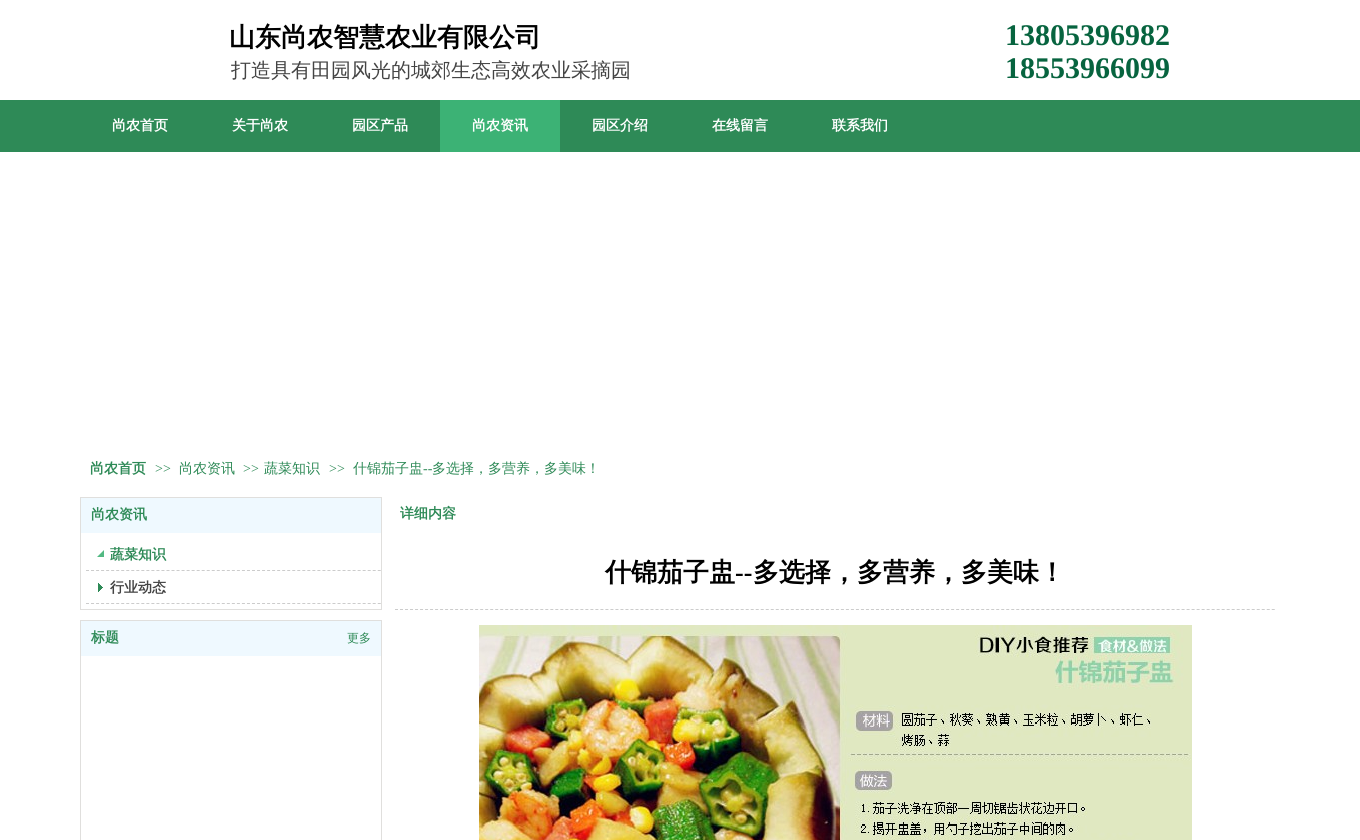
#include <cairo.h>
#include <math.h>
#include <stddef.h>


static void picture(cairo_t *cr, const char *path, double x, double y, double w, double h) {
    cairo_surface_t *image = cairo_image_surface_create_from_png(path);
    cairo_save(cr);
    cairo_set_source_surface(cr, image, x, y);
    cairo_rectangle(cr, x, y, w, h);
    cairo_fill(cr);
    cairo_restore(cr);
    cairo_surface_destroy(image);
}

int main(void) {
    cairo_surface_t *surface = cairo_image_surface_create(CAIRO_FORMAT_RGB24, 1360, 840);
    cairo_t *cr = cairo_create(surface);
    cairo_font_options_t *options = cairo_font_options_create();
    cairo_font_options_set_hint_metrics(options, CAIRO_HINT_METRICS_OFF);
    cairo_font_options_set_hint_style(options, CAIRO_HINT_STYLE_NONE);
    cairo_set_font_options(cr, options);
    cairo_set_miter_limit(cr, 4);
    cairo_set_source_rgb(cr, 1, 1, 1);
    cairo_paint(cr);
    cairo_select_font_face(cr, "WenQuanYi Zen Hei", CAIRO_FONT_SLANT_NORMAL, CAIRO_FONT_WEIGHT_BOLD);
    cairo_set_font_size(cr, 26);
    cairo_set_source_rgb(cr, 0, 0, 0);
    cairo_move_to(cr, 229, 46);
    cairo_show_text(cr, "山东尚农智慧农业有限公司");
    cairo_select_font_face(cr, "Liberation Serif", CAIRO_FONT_SLANT_NORMAL, CAIRO_FONT_WEIGHT_BOLD);
    cairo_set_font_size(cr, 30);
    cairo_set_source_rgb(cr, 0.031, 0.392, 0.247);
    cairo_move_to(cr, 1005, 45);
    cairo_show_text(cr, "13805396982");
    cairo_move_to(cr, 1005, 78);
    cairo_show_text(cr, "18553966099");
    cairo_select_font_face(cr, "WenQuanYi Zen Hei Medium", CAIRO_FONT_SLANT_NORMAL, CAIRO_FONT_WEIGHT_NORMAL);
    cairo_set_font_size(cr, 20);
    cairo_set_source_rgb(cr, 0.267, 0.267, 0.267);
    cairo_move_to(cr, 231, 77);
    cairo_show_text(cr, "打造具有田园风光的城郊生态高效农业采摘园");
    cairo_set_source_rgb(cr, 0.18, 0.541, 0.341);
    cairo_rectangle(cr, 0, 100, 1360, 52);
    cairo_fill(cr);
    cairo_select_font_face(cr, "WenQuanYi Zen Hei", CAIRO_FONT_SLANT_NORMAL, CAIRO_FONT_WEIGHT_BOLD);
    cairo_set_font_size(cr, 14);
    cairo_set_source_rgb(cr, 1, 1, 1);
    cairo_move_to(cr, 112, 130);
    cairo_show_text(cr, "尚农首页");
    cairo_move_to(cr, 232, 130);
    cairo_show_text(cr, "关于尚农");
    cairo_move_to(cr, 352, 130);
    cairo_show_text(cr, "园区产品");
    cairo_set_source_rgb(cr, 0.235, 0.698, 0.459);
    cairo_rectangle(cr, 440, 100, 120, 52);
    cairo_fill(cr);
    cairo_set_source_rgb(cr, 1, 1, 1);
    cairo_move_to(cr, 472, 130);
    cairo_show_text(cr, "尚农资讯");
    cairo_move_to(cr, 592, 130);
    cairo_show_text(cr, "园区介绍");
    cairo_move_to(cr, 712, 130);
    cairo_show_text(cr, "在线留言");
    cairo_move_to(cr, 832, 130);
    cairo_show_text(cr, "联系我们");
    cairo_set_source_rgb(cr, 0.18, 0.541, 0.341);
    cairo_move_to(cr, 90, 473);
    cairo_show_text(cr, "尚农首页");
    cairo_select_font_face(cr, "Liberation Serif", CAIRO_FONT_SLANT_NORMAL, CAIRO_FONT_WEIGHT_NORMAL);
    cairo_move_to(cr, 155, 473);
    cairo_show_text(cr, ">>");
    cairo_select_font_face(cr, "WenQuanYi Zen Hei Medium", CAIRO_FONT_SLANT_NORMAL, CAIRO_FONT_WEIGHT_NORMAL);
    cairo_move_to(cr, 179, 473);
    cairo_show_text(cr, "尚农资讯");
    cairo_select_font_face(cr, "Liberation Serif", CAIRO_FONT_SLANT_NORMAL, CAIRO_FONT_WEIGHT_NORMAL);
    cairo_move_to(cr, 243, 473);
    cairo_show_text(cr, ">>");
    cairo_select_font_face(cr, "WenQuanYi Zen Hei Medium", CAIRO_FONT_SLANT_NORMAL, CAIRO_FONT_WEIGHT_NORMAL);
    cairo_move_to(cr, 264, 473);
    cairo_show_text(cr, "蔬菜知识");
    cairo_select_font_face(cr, "Liberation Serif", CAIRO_FONT_SLANT_NORMAL, CAIRO_FONT_WEIGHT_NORMAL);
    cairo_move_to(cr, 329, 473);
    cairo_show_text(cr, ">>");
    cairo_select_font_face(cr, "WenQuanYi Zen Hei Medium", CAIRO_FONT_SLANT_NORMAL, CAIRO_FONT_WEIGHT_NORMAL);
    cairo_move_to(cr, 353, 473);
    cairo_show_text(cr, "什锦茄子盅");
    cairo_select_font_face(cr, "Liberation Serif", CAIRO_FONT_SLANT_NORMAL, CAIRO_FONT_WEIGHT_NORMAL);
    cairo_move_to(cr, 423, 473);
    cairo_show_text(cr, "--");
    cairo_select_font_face(cr, "WenQuanYi Zen Hei Medium", CAIRO_FONT_SLANT_NORMAL, CAIRO_FONT_WEIGHT_NORMAL);
    cairo_move_to(cr, 432, 473);
    cairo_show_text(cr, "多选择，多营养，多美味！");
    cairo_rectangle(cr, 80.5, 497.5, 301, 112);
    cairo_set_source_rgb(cr, 0.878, 0.875, 0.867);
    cairo_set_line_width(cr, 1);
    cairo_stroke(cr);
    cairo_set_source_rgb(cr, 0.937, 0.973, 1);
    cairo_rectangle(cr, 81, 498, 300, 35);
    cairo_fill(cr);
    cairo_select_font_face(cr, "WenQuanYi Zen Hei", CAIRO_FONT_SLANT_NORMAL, CAIRO_FONT_WEIGHT_BOLD);
    cairo_set_source_rgb(cr, 0.18, 0.541, 0.341);
    cairo_move_to(cr, 91, 519);
    cairo_show_text(cr, "尚农资讯");
    cairo_save(cr);
    cairo_rectangle(cr, 86, 538, 295, 33);
    cairo_clip(cr);
    cairo_new_path(cr);
    cairo_move_to(cr, 86, 570.5);
    cairo_line_to(cr, 386, 570.5);
    cairo_set_source_rgb(cr, 0.8, 0.8, 0.8);
    cairo_set_dash(cr, (double[]){3, 2.03}, 2, 0);
    cairo_stroke(cr);
    cairo_restore(cr);
    picture(cr, "img1.png", 97, 550, 7, 7);
    cairo_move_to(cr, 110, 559);
    cairo_show_text(cr, "蔬菜知识");
    cairo_save(cr);
    cairo_rectangle(cr, 86, 571, 295, 33);
    cairo_clip(cr);
    cairo_new_path(cr);
    cairo_move_to(cr, 86, 603.5);
    cairo_line_to(cr, 386, 603.5);
    cairo_set_source_rgb(cr, 0.8, 0.8, 0.8);
    cairo_set_dash(cr, (double[]){3, 2.03}, 2, 0);
    cairo_stroke(cr);
    cairo_restore(cr);
    picture(cr, "img2.png", 98, 583, 5, 9);
    cairo_set_source_rgb(cr, 0.267, 0.267, 0.267);
    cairo_move_to(cr, 110, 592);
    cairo_show_text(cr, "行业动态");
    cairo_rectangle(cr, 80.5, 620.5, 301, 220);
    cairo_set_source_rgb(cr, 0.878, 0.875, 0.867);
    cairo_stroke(cr);
    cairo_set_source_rgb(cr, 0.937, 0.973, 1);
    cairo_rectangle(cr, 81, 621, 300, 35);
    cairo_fill(cr);
    cairo_set_source_rgb(cr, 0.18, 0.541, 0.341);
    cairo_move_to(cr, 91, 642);
    cairo_show_text(cr, "标题");
    cairo_select_font_face(cr, "WenQuanYi Zen Hei Medium", CAIRO_FONT_SLANT_NORMAL, CAIRO_FONT_WEIGHT_NORMAL);
    cairo_set_font_size(cr, 12);
    cairo_move_to(cr, 347, 642);
    cairo_show_text(cr, "更多");
    cairo_select_font_face(cr, "WenQuanYi Zen Hei", CAIRO_FONT_SLANT_NORMAL, CAIRO_FONT_WEIGHT_BOLD);
    cairo_set_font_size(cr, 14);
    cairo_move_to(cr, 400, 518);
    cairo_show_text(cr, "详细内容");
    cairo_new_path(cr);
    cairo_move_to(cr, 395, 609.5);
    cairo_line_to(cr, 1275, 609.5);
    cairo_set_source_rgb(cr, 0.8, 0.8, 0.8);
    cairo_set_dash(cr, (double[]){3, 2.01}, 2, 0);
    cairo_stroke(cr);
    cairo_set_font_size(cr, 26);
    cairo_set_source_rgb(cr, 0, 0, 0);
    cairo_move_to(cr, 605, 581);
    cairo_show_text(cr, "什锦茄子盅");
    cairo_select_font_face(cr, "Liberation Serif", CAIRO_FONT_SLANT_NORMAL, CAIRO_FONT_WEIGHT_BOLD);
    cairo_move_to(cr, 735, 581);
    cairo_show_text(cr, "--");
    cairo_select_font_face(cr, "WenQuanYi Zen Hei", CAIRO_FONT_SLANT_NORMAL, CAIRO_FONT_WEIGHT_BOLD);
    cairo_move_to(cr, 753, 581);
    cairo_show_text(cr, "多选择，多营养，多美味！");
    picture(cr, "img3.png", 479, 625, 713, 215);
    cairo_surface_write_to_png(surface, "page.png");
    cairo_font_options_destroy(options);
    cairo_destroy(cr);
    cairo_surface_destroy(surface);
    return 0;
}
